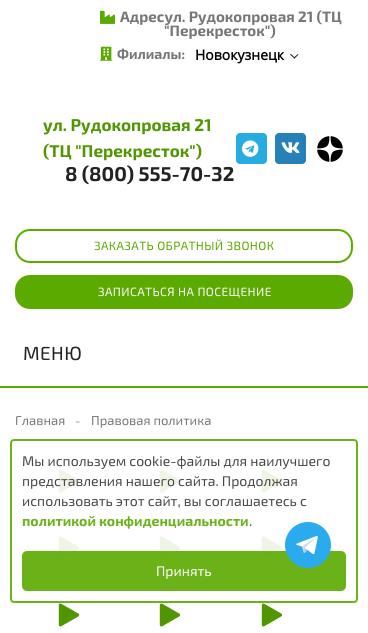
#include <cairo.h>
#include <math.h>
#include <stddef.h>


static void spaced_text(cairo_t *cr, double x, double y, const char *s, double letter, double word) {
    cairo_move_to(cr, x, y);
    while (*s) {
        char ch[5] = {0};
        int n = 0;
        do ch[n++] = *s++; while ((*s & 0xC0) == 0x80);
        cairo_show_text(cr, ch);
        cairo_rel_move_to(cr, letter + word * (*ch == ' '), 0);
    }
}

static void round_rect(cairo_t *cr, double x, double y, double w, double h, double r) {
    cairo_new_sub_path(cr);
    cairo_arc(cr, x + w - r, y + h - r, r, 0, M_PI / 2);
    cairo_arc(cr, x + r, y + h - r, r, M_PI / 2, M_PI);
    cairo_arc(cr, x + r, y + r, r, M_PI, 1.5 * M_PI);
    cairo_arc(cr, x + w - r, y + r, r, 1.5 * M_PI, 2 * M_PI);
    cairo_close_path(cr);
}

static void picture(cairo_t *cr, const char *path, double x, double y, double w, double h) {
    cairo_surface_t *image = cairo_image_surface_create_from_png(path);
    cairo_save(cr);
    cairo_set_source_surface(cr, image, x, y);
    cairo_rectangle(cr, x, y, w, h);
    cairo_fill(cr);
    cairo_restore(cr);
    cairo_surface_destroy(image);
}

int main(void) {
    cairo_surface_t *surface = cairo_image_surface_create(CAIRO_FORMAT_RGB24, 368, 633);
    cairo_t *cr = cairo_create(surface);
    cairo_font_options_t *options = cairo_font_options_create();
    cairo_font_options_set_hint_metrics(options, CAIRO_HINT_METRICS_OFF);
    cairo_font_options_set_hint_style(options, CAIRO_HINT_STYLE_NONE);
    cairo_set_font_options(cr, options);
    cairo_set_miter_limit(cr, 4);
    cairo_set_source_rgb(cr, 1, 1, 1);
    cairo_paint(cr);
    picture(cr, "img1.png", 100, 10, 15, 14);
    cairo_select_font_face(cr, "Exo 2", CAIRO_FONT_SLANT_NORMAL, CAIRO_FONT_WEIGHT_BOLD);
    cairo_set_font_size(cr, 15);
    cairo_set_source_rgb(cr, 0.467, 0.467, 0.467);
    cairo_move_to(cr, 120, 22);
    cairo_show_text(cr, "Адресул. Рудокопровая 21 (ТЦ");
    cairo_move_to(cr, 164, 36);
    cairo_show_text(cr, "\"Перекресток\")");
    picture(cr, "img2.png", 100, 46, 13, 15);
    cairo_set_font_size(cr, 14);
    cairo_move_to(cr, 117, 59);
    cairo_show_text(cr, "Филиалы:");
    cairo_select_font_face(cr, "Open Sans", CAIRO_FONT_SLANT_NORMAL, CAIRO_FONT_WEIGHT_BOLD);
    cairo_set_source_rgb(cr, 0, 0, 0);
    cairo_move_to(cr, 195, 60);
    cairo_show_text(cr, "Новокузнецк");
    cairo_new_path(cr);
    cairo_move_to(cr, 298, 54);
    cairo_line_to(cr, 298.5, 54.5);
    cairo_line_to(cr, 294.5, 58.5);
    cairo_line_to(cr, 293.5, 58);
    cairo_close_path(cr);
    cairo_fill(cr);
    cairo_new_path(cr);
    cairo_move_to(cr, 291, 54);
    cairo_line_to(cr, 295, 58);
    cairo_line_to(cr, 294.5, 58.5);
    cairo_line_to(cr, 290, 54.5);
    cairo_close_path(cr);
    cairo_fill(cr);
    cairo_select_font_face(cr, "Exo 2", CAIRO_FONT_SLANT_NORMAL, CAIRO_FONT_WEIGHT_BOLD);
    cairo_set_font_size(cr, 17);
    cairo_set_source_rgb(cr, 0.314, 0.588, 0);
    cairo_move_to(cr, 43, 131);
    cairo_show_text(cr, "ул. Рудокопровая 21");
    cairo_move_to(cr, 43, 157);
    cairo_show_text(cr, "(ТЦ \"Перекресток\")");
    cairo_set_font_size(cr, 20);
    cairo_set_source_rgb(cr, 0.133, 0.133, 0.133);
    cairo_move_to(cr, 65, 181);
    cairo_show_text(cr, "8 (800) 555-70-32");
    cairo_set_source_rgb(cr, 0.153, 0.675, 0.886);
    round_rect(cr, 236, 133, 31, 31, 4);
    cairo_fill(cr);
    picture(cr, "img3.png", 242, 140, 17, 17);
    cairo_set_source_rgb(cr, 0.145, 0.506, 0.718);
    round_rect(cr, 275, 133, 31, 31, 4);
    cairo_fill(cr);
    picture(cr, "img4.png", 281, 142, 19, 11);
    picture(cr, "img5.png", 317, 136, 26, 26);
    round_rect(cr, 16, 230, 336, 32, 14);
    cairo_set_source_rgb(cr, 0.357, 0.667, 0);
    cairo_stroke(cr);
    cairo_select_font_face(cr, "Exo 2", CAIRO_FONT_SLANT_NORMAL, CAIRO_FONT_WEIGHT_NORMAL);
    cairo_set_font_size(cr, 12);
    spaced_text(cr, 94, 250, "ЗАКАЗАТЬ ОБРАТНЫЙ ЗВОНОК", 0.4, 0);
    round_rect(cr, 16, 276, 336, 32, 14);
    cairo_fill_preserve(cr);
    cairo_stroke(cr);
    cairo_set_source_rgb(cr, 1, 1, 1);
    spaced_text(cr, 98, 296, "ЗАПИСАТЬСЯ НА ПОСЕЩЕНИЕ", 0.4, 0);
    cairo_set_font_size(cr, 19);
    cairo_set_source_rgb(cr, 0.133, 0.133, 0.133);
    spaced_text(cr, 23, 360, "МЕНЮ", 0.4, 0);
    cairo_set_source_rgb(cr, 0.357, 0.667, 0);
    cairo_rectangle(cr, 0, 386, 368, 2);
    cairo_fill(cr);
    cairo_set_font_size(cr, 13);
    cairo_set_source_rgb(cr, 0.467, 0.467, 0.467);
    cairo_move_to(cr, 15, 425);
    cairo_show_text(cr, "Главная");
    cairo_set_font_size(cr, 12);
    cairo_set_source_rgb(cr, 0.533, 0.533, 0.533);
    cairo_move_to(cr, 75, 425);
    cairo_show_text(cr, "-");
    cairo_set_font_size(cr, 13);
    cairo_set_source_rgb(cr, 0.467, 0.467, 0.467);
    cairo_move_to(cr, 91, 425);
    cairo_show_text(cr, "Правовая политика");
    picture(cr, "img6.png", 58, 469, 22, 24);
    picture(cr, "img6.png", 159, 469, 22, 24);
    picture(cr, "img6.png", 261, 469, 22, 24);
    picture(cr, "img6.png", 58, 536, 22, 24);
    picture(cr, "img6.png", 159, 536, 22, 24);
    picture(cr, "img6.png", 261, 536, 22, 24);
    picture(cr, "img6.png", 58, 603, 22, 24);
    picture(cr, "img6.png", 159, 603, 22, 24);
    picture(cr, "img6.png", 261, 603, 22, 24);
    cairo_set_source_rgba(cr, 1, 1, 1, 0.9);
    round_rect(cr, 11, 440, 346, 162, 3);
    cairo_fill_preserve(cr);
    cairo_set_source_rgb(cr, 0.42, 0.702, 0.102);
    cairo_stroke(cr);
    cairo_set_font_size(cr, 14);
    cairo_set_source_rgb(cr, 0.278, 0.278, 0.278);
    cairo_move_to(cr, 22, 466);
    cairo_show_text(cr, "Мы используем cookie-файлы для наилучшего");
    cairo_move_to(cr, 22, 486);
    cairo_show_text(cr, "представления нашего сайта. Продолжая");
    cairo_move_to(cr, 22, 506);
    cairo_show_text(cr, "использовать этот сайт, вы соглашаетесь c");
    cairo_select_font_face(cr, "Exo 2", CAIRO_FONT_SLANT_NORMAL, CAIRO_FONT_WEIGHT_BOLD);
    cairo_set_source_rgb(cr, 0.42, 0.702, 0.102);
    cairo_move_to(cr, 22, 526);
    cairo_show_text(cr, "политикой конфиденциальности");
    cairo_select_font_face(cr, "Exo 2", CAIRO_FONT_SLANT_NORMAL, CAIRO_FONT_WEIGHT_NORMAL);
    cairo_set_source_rgb(cr, 0.278, 0.278, 0.278);
    cairo_move_to(cr, 249, 526);
    cairo_show_text(cr, ".");
    cairo_set_source_rgba(cr, 0.357, 0.667, 0, 0.9);
    round_rect(cr, 22, 551, 324, 40, 5);
    cairo_fill(cr);
    cairo_set_source_rgb(cr, 1, 1, 1);
    cairo_move_to(cr, 156, 576);
    cairo_show_text(cr, "Принять");
    cairo_set_source_rgb(cr, 0.165, 0.671, 0.933);
    cairo_new_path(cr);
    cairo_arc(cr, 308, 545, 23, 0, 2 * M_PI);
    cairo_fill(cr);
    picture(cr, "img7.png", 296, 535, 22, 20);
    cairo_surface_write_to_png(surface, "page.png");
    cairo_font_options_destroy(options);
    cairo_destroy(cr);
    cairo_surface_destroy(surface);
    return 0;
}
